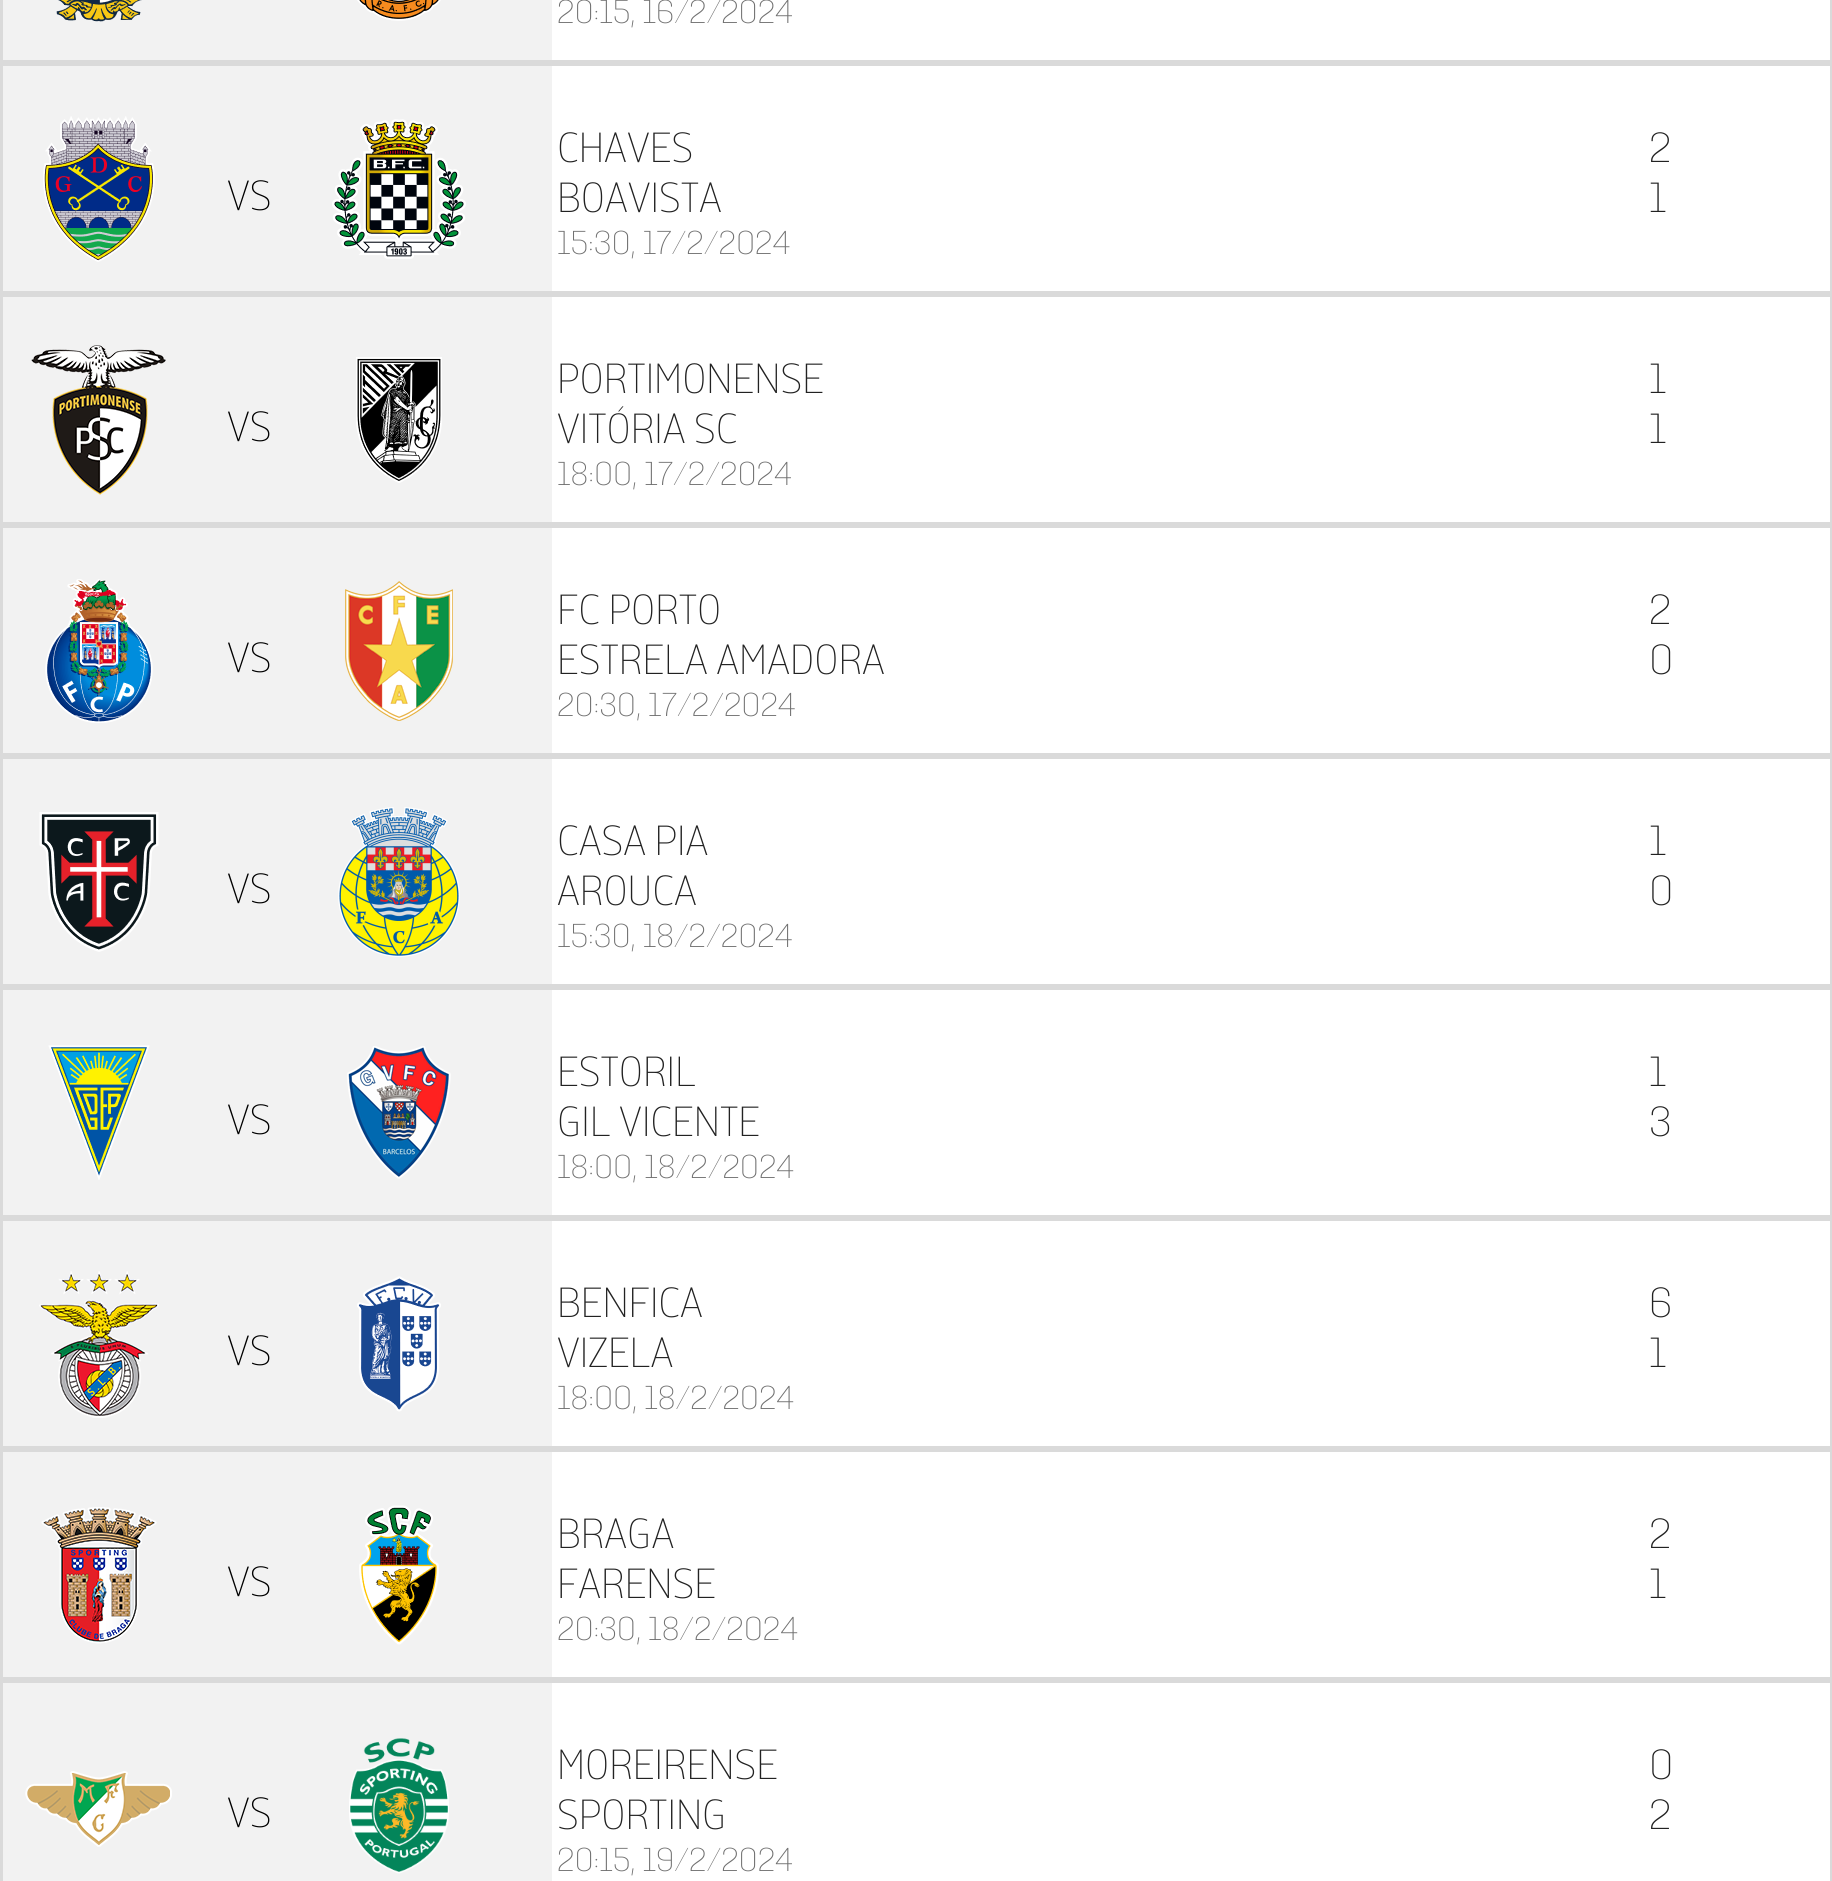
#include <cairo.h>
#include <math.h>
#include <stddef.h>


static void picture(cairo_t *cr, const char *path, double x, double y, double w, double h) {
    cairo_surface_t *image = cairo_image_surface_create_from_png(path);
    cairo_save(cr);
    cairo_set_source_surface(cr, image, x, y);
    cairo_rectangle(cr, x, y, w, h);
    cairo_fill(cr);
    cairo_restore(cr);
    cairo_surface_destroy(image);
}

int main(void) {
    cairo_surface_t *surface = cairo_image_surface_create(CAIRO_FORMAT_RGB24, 1832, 1881);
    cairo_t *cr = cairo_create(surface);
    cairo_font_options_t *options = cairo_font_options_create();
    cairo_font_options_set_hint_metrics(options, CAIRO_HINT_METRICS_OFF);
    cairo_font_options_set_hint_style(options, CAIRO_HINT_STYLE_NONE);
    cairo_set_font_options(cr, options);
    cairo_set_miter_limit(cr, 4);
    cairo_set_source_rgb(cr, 1, 1, 1);
    cairo_paint(cr);
    cairo_rectangle(cr, 1.5, -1.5, 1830, 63);
    cairo_set_source_rgb(cr, 0.855, 0.855, 0.855);
    cairo_set_line_width(cr, 3);
    cairo_stroke(cr);
    cairo_set_source_rgb(cr, 0.949, 0.949, 0.949);
    cairo_rectangle(cr, 3, 0, 549, 60);
    cairo_fill(cr);
    picture(cr, "img1.png", 56, 0, 86, 22);
    picture(cr, "img2.png", 357, 0, 84, 21);
    cairo_select_font_face(cr, "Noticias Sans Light", CAIRO_FONT_SLANT_NORMAL, CAIRO_FONT_WEIGHT_NORMAL);
    cairo_set_font_size(cr, 33);
    cairo_set_source_rgb(cr, 0.439, 0.439, 0.439);
    cairo_move_to(cr, 557, 23);
    cairo_show_text(cr, "20:15, 16/2/2024");
    cairo_rectangle(cr, 1.5, 64.5, 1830, 228);
    cairo_set_source_rgb(cr, 0.855, 0.855, 0.855);
    cairo_stroke(cr);
    cairo_set_source_rgb(cr, 0.949, 0.949, 0.949);
    cairo_rectangle(cr, 3, 66, 549, 225);
    cairo_fill(cr);
    picture(cr, "img3.png", 43, 116, 112, 146);
    cairo_set_font_size(cr, 42);
    cairo_set_source_rgb(cr, 0, 0, 0);
    cairo_move_to(cr, 227, 210);
    cairo_show_text(cr, "VS");
    picture(cr, "img4.png", 332, 119, 134, 140);
    cairo_set_source_rgb(cr, 0.133, 0.133, 0.133);
    cairo_move_to(cr, 557, 162);
    cairo_show_text(cr, "CHAVES");
    cairo_move_to(cr, 1649, 162);
    cairo_show_text(cr, "2");
    cairo_move_to(cr, 557, 212);
    cairo_show_text(cr, "BOAVISTA");
    cairo_move_to(cr, 1649, 212);
    cairo_show_text(cr, "1");
    cairo_set_font_size(cr, 33);
    cairo_set_source_rgb(cr, 0.439, 0.439, 0.439);
    cairo_move_to(cr, 557, 254);
    cairo_show_text(cr, "15:30, 17/2/2024");
    cairo_rectangle(cr, 1.5, 295.5, 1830, 228);
    cairo_set_source_rgb(cr, 0.855, 0.855, 0.855);
    cairo_stroke(cr);
    cairo_set_source_rgb(cr, 0.949, 0.949, 0.949);
    cairo_rectangle(cr, 3, 297, 549, 225);
    cairo_fill(cr);
    picture(cr, "img5.png", 31, 345, 135, 150);
    cairo_set_font_size(cr, 42);
    cairo_set_source_rgb(cr, 0, 0, 0);
    cairo_move_to(cr, 227, 441);
    cairo_show_text(cr, "VS");
    picture(cr, "img6.png", 356, 357, 86, 126);
    cairo_set_source_rgb(cr, 0.133, 0.133, 0.133);
    cairo_move_to(cr, 557, 393);
    cairo_show_text(cr, "PORTIMONENSE");
    cairo_move_to(cr, 1649, 393);
    cairo_show_text(cr, "1");
    cairo_move_to(cr, 557, 443);
    cairo_show_text(cr, "VITÓRIA SC");
    cairo_move_to(cr, 1649, 443);
    cairo_show_text(cr, "1");
    cairo_set_font_size(cr, 33);
    cairo_set_source_rgb(cr, 0.439, 0.439, 0.439);
    cairo_move_to(cr, 557, 485);
    cairo_show_text(cr, "18:00, 17/2/2024");
    cairo_rectangle(cr, 1.5, 526.5, 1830, 228);
    cairo_set_source_rgb(cr, 0.855, 0.855, 0.855);
    cairo_stroke(cr);
    cairo_set_source_rgb(cr, 0.949, 0.949, 0.949);
    cairo_rectangle(cr, 3, 528, 549, 225);
    cairo_fill(cr);
    picture(cr, "img7.png", 45, 579, 108, 144);
    cairo_set_font_size(cr, 42);
    cairo_set_source_rgb(cr, 0, 0, 0);
    cairo_move_to(cr, 227, 672);
    cairo_show_text(cr, "VS");
    picture(cr, "img8.png", 345, 581, 108, 140);
    cairo_set_source_rgb(cr, 0.133, 0.133, 0.133);
    cairo_move_to(cr, 557, 624);
    cairo_show_text(cr, "FC PORTO");
    cairo_move_to(cr, 1649, 624);
    cairo_show_text(cr, "2");
    cairo_move_to(cr, 557, 674);
    cairo_show_text(cr, "ESTRELA AMADORA");
    cairo_move_to(cr, 1649, 674);
    cairo_show_text(cr, "0");
    cairo_set_font_size(cr, 33);
    cairo_set_source_rgb(cr, 0.439, 0.439, 0.439);
    cairo_move_to(cr, 557, 716);
    cairo_show_text(cr, "20:30, 17/2/2024");
    cairo_rectangle(cr, 1.5, 757.5, 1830, 228);
    cairo_set_source_rgb(cr, 0.855, 0.855, 0.855);
    cairo_stroke(cr);
    cairo_set_source_rgb(cr, 0.949, 0.949, 0.949);
    cairo_rectangle(cr, 3, 759, 549, 225);
    cairo_fill(cr);
    picture(cr, "img9.png", 39, 812, 120, 140);
    cairo_set_font_size(cr, 42);
    cairo_set_source_rgb(cr, 0, 0, 0);
    cairo_move_to(cr, 227, 903);
    cairo_show_text(cr, "VS");
    picture(cr, "img10.png", 338, 807, 122, 150);
    cairo_set_source_rgb(cr, 0.133, 0.133, 0.133);
    cairo_move_to(cr, 557, 855);
    cairo_show_text(cr, "CASA PIA");
    cairo_move_to(cr, 1649, 855);
    cairo_show_text(cr, "1");
    cairo_move_to(cr, 557, 905);
    cairo_show_text(cr, "AROUCA");
    cairo_move_to(cr, 1649, 905);
    cairo_show_text(cr, "0");
    cairo_set_font_size(cr, 33);
    cairo_set_source_rgb(cr, 0.439, 0.439, 0.439);
    cairo_move_to(cr, 557, 947);
    cairo_show_text(cr, "15:30, 18/2/2024");
    cairo_rectangle(cr, 1.5, 988.5, 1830, 228);
    cairo_set_source_rgb(cr, 0.855, 0.855, 0.855);
    cairo_stroke(cr);
    cairo_set_source_rgb(cr, 0.949, 0.949, 0.949);
    cairo_rectangle(cr, 3, 990, 549, 225);
    cairo_fill(cr);
    picture(cr, "img11.png", 48, 1045, 102, 135);
    cairo_set_font_size(cr, 42);
    cairo_set_source_rgb(cr, 0, 0, 0);
    cairo_move_to(cr, 227, 1134);
    cairo_show_text(cr, "VS");
    picture(cr, "img12.png", 347, 1046, 104, 133);
    cairo_set_source_rgb(cr, 0.133, 0.133, 0.133);
    cairo_move_to(cr, 557, 1086);
    cairo_show_text(cr, "ESTORIL");
    cairo_move_to(cr, 1649, 1086);
    cairo_show_text(cr, "1");
    cairo_move_to(cr, 557, 1136);
    cairo_show_text(cr, "GIL VICENTE");
    cairo_move_to(cr, 1649, 1136);
    cairo_show_text(cr, "3");
    cairo_set_font_size(cr, 33);
    cairo_set_source_rgb(cr, 0.439, 0.439, 0.439);
    cairo_move_to(cr, 557, 1178);
    cairo_show_text(cr, "18:00, 18/2/2024");
    cairo_rectangle(cr, 1.5, 1219.5, 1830, 228);
    cairo_set_source_rgb(cr, 0.855, 0.855, 0.855);
    cairo_stroke(cr);
    cairo_set_source_rgb(cr, 0.949, 0.949, 0.949);
    cairo_rectangle(cr, 3, 1221, 549, 225);
    cairo_fill(cr);
    picture(cr, "img13.png", 39, 1271, 120, 147);
    cairo_set_font_size(cr, 42);
    cairo_set_source_rgb(cr, 0, 0, 0);
    cairo_move_to(cr, 227, 1365);
    cairo_show_text(cr, "VS");
    picture(cr, "img14.png", 357, 1276, 84, 136);
    cairo_set_source_rgb(cr, 0.133, 0.133, 0.133);
    cairo_move_to(cr, 557, 1317);
    cairo_show_text(cr, "BENFICA");
    cairo_move_to(cr, 1649, 1317);
    cairo_show_text(cr, "6");
    cairo_move_to(cr, 557, 1367);
    cairo_show_text(cr, "VIZELA");
    cairo_move_to(cr, 1649, 1367);
    cairo_show_text(cr, "1");
    cairo_set_font_size(cr, 33);
    cairo_set_source_rgb(cr, 0.439, 0.439, 0.439);
    cairo_move_to(cr, 557, 1409);
    cairo_show_text(cr, "18:00, 18/2/2024");
    cairo_rectangle(cr, 1.5, 1450.5, 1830, 228);
    cairo_set_source_rgb(cr, 0.855, 0.855, 0.855);
    cairo_stroke(cr);
    cairo_set_source_rgb(cr, 0.949, 0.949, 0.949);
    cairo_rectangle(cr, 3, 1452, 549, 225);
    cairo_fill(cr);
    picture(cr, "img15.png", 41, 1507, 116, 137);
    cairo_set_font_size(cr, 42);
    cairo_set_source_rgb(cr, 0, 0, 0);
    cairo_move_to(cr, 227, 1596);
    cairo_show_text(cr, "VS");
    picture(cr, "img16.png", 359, 1505, 80, 140);
    cairo_set_source_rgb(cr, 0.133, 0.133, 0.133);
    cairo_move_to(cr, 557, 1548);
    cairo_show_text(cr, "BRAGA");
    cairo_move_to(cr, 1649, 1548);
    cairo_show_text(cr, "2");
    cairo_move_to(cr, 557, 1598);
    cairo_show_text(cr, "FARENSE");
    cairo_move_to(cr, 1649, 1598);
    cairo_show_text(cr, "1");
    cairo_set_font_size(cr, 33);
    cairo_set_source_rgb(cr, 0.439, 0.439, 0.439);
    cairo_move_to(cr, 557, 1640);
    cairo_show_text(cr, "20:30, 18/2/2024");
    cairo_rectangle(cr, 1.5, 1681.5, 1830, 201);
    cairo_set_source_rgb(cr, 0.855, 0.855, 0.855);
    cairo_stroke(cr);
    cairo_set_source_rgb(cr, 0.949, 0.949, 0.949);
    cairo_rectangle(cr, 3, 1683, 549, 198);
    cairo_fill(cr);
    picture(cr, "img17.png", 25, 1771, 147, 76);
    cairo_set_font_size(cr, 42);
    cairo_set_source_rgb(cr, 0, 0, 0);
    cairo_move_to(cr, 227, 1827);
    cairo_show_text(cr, "VS");
    picture(cr, "img18.png", 349, 1738, 100, 136);
    cairo_set_source_rgb(cr, 0.133, 0.133, 0.133);
    cairo_move_to(cr, 557, 1779);
    cairo_show_text(cr, "MOREIRENSE");
    cairo_move_to(cr, 1649, 1779);
    cairo_show_text(cr, "0");
    cairo_move_to(cr, 557, 1829);
    cairo_show_text(cr, "SPORTING");
    cairo_move_to(cr, 1649, 1829);
    cairo_show_text(cr, "2");
    cairo_set_font_size(cr, 33);
    cairo_set_source_rgb(cr, 0.439, 0.439, 0.439);
    cairo_move_to(cr, 557, 1871);
    cairo_show_text(cr, "20:15, 19/2/2024");
    cairo_surface_write_to_png(surface, "page.png");
    cairo_font_options_destroy(options);
    cairo_destroy(cr);
    cairo_surface_destroy(surface);
    return 0;
}
